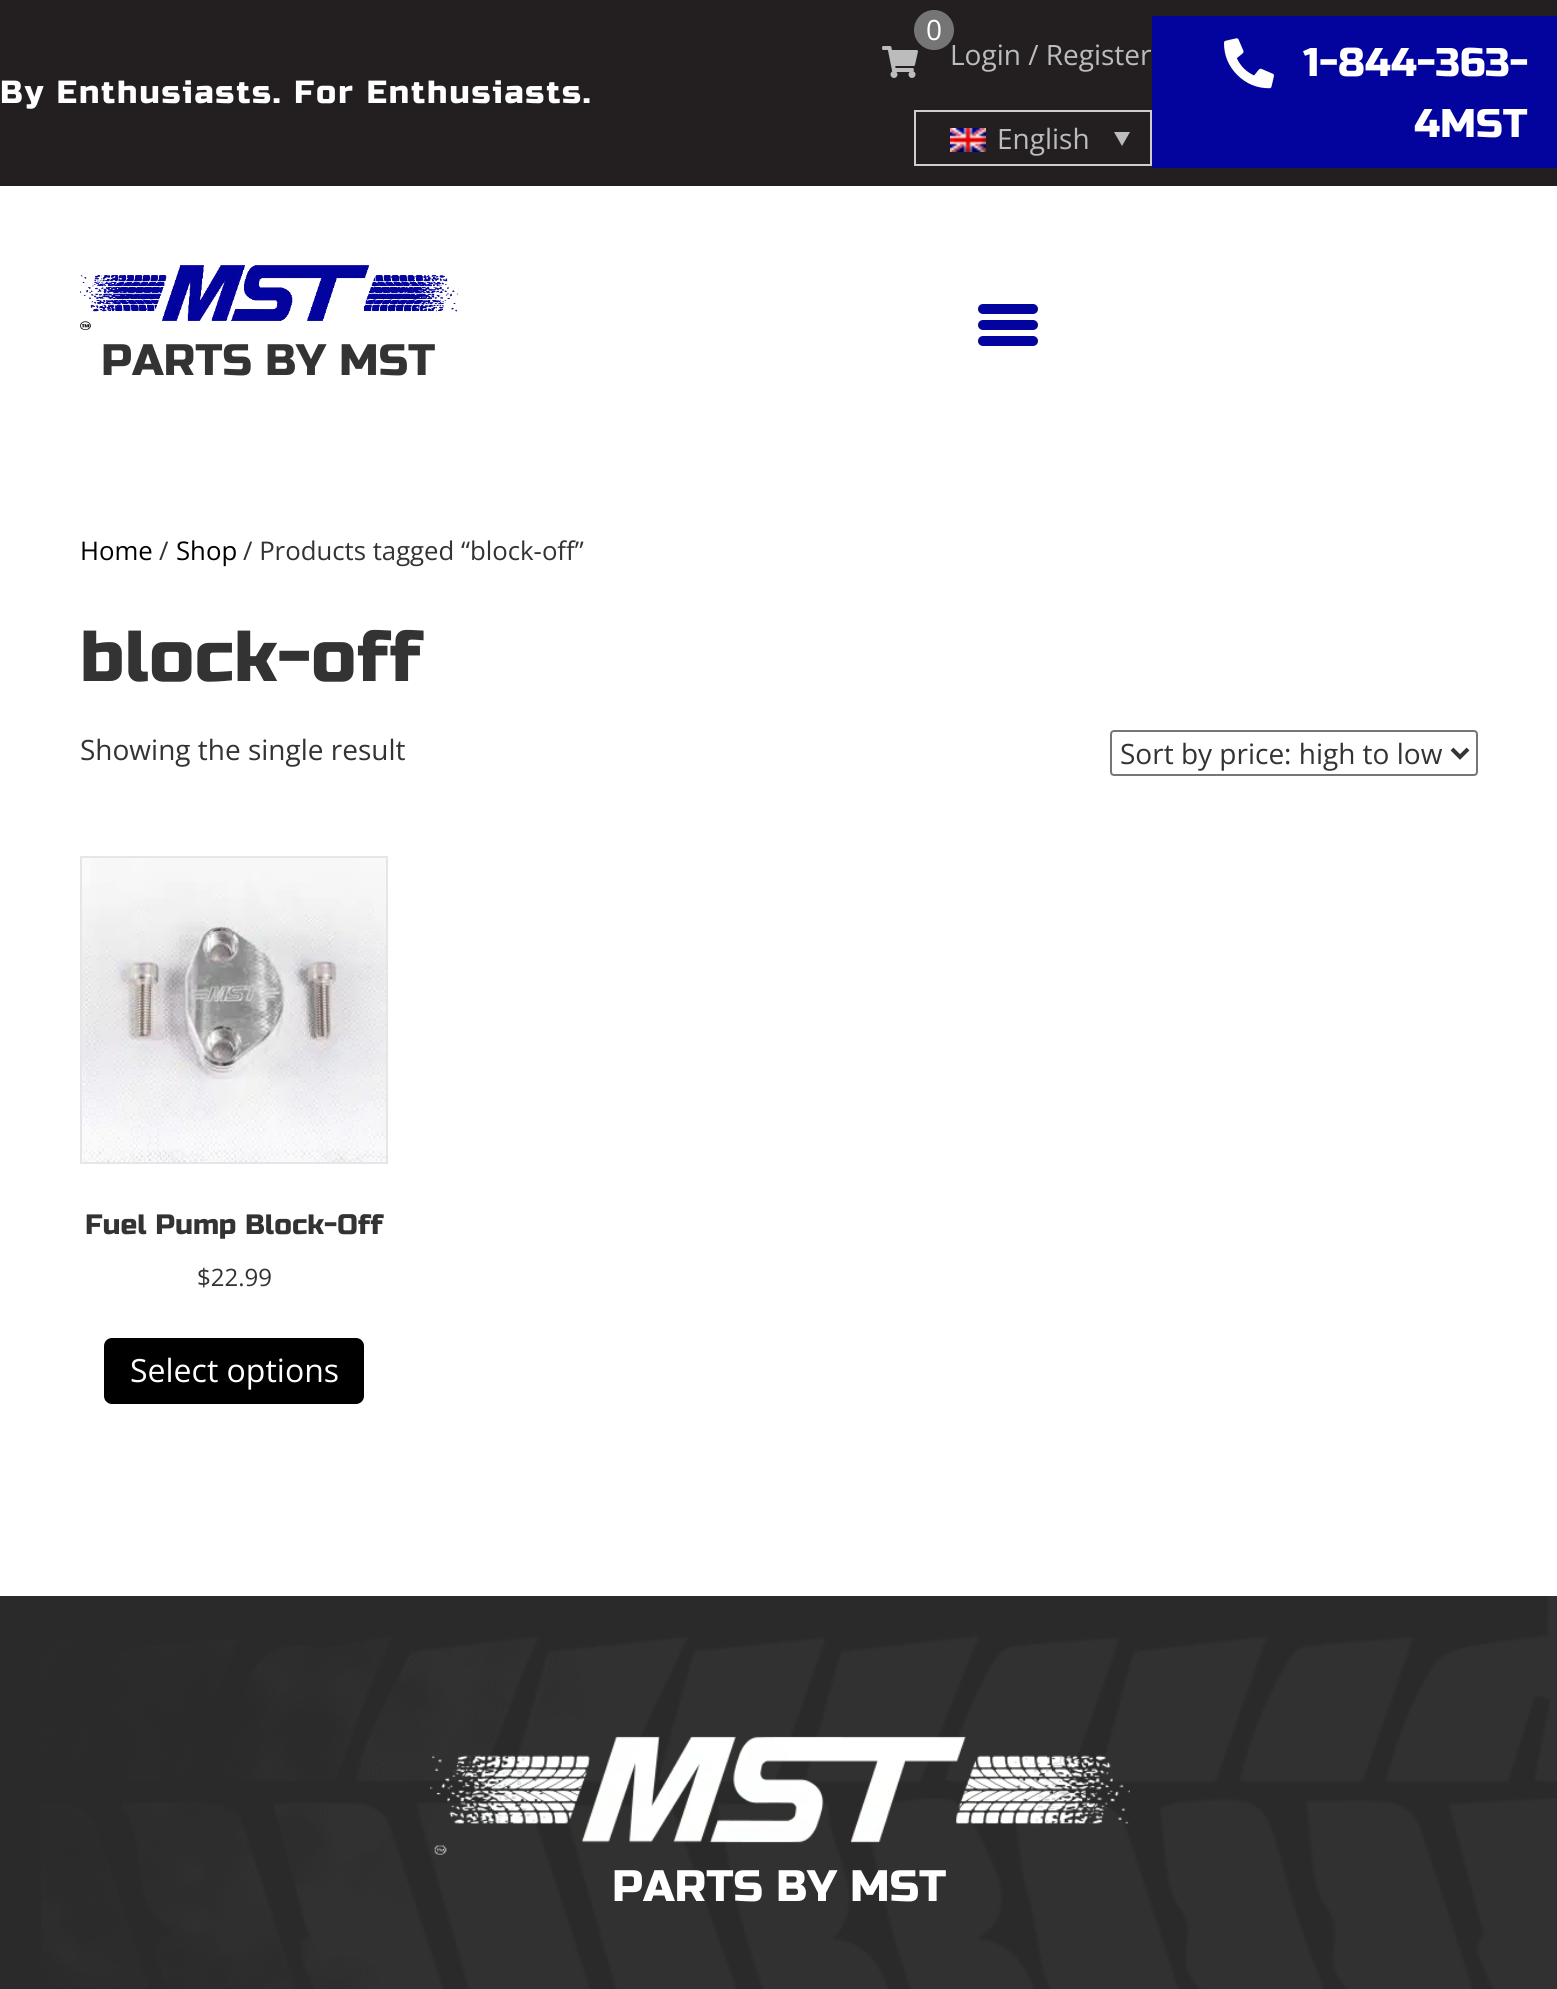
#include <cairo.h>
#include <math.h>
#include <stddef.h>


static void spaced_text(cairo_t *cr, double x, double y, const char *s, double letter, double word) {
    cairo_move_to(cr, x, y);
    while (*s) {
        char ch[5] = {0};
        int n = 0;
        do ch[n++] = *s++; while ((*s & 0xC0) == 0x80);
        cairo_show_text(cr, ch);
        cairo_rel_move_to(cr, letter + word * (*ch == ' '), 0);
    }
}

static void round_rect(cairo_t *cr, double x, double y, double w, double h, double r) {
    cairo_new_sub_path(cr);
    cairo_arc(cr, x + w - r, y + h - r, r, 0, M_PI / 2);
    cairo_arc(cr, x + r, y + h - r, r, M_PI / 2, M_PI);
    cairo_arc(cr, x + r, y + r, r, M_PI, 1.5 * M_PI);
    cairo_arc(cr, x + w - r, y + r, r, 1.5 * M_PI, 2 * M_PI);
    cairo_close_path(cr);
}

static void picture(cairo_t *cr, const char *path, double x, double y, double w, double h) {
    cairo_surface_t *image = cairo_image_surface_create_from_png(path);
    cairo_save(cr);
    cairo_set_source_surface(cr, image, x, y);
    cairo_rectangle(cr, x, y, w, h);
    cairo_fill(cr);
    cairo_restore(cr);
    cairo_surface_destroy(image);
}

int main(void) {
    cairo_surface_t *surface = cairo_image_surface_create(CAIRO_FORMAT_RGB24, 1557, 1989);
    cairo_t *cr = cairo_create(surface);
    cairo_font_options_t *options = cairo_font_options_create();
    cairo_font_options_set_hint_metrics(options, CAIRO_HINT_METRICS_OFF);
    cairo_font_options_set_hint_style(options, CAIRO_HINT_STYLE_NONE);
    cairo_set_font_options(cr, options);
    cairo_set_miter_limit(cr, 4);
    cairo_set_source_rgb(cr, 1, 1, 1);
    cairo_paint(cr);
    cairo_set_source_rgb(cr, 0.137, 0.122, 0.125);
    cairo_rectangle(cr, 0, 0, 1557, 186);
    cairo_fill(cr);
    cairo_select_font_face(cr, "Russo One", CAIRO_FONT_SLANT_NORMAL, CAIRO_FONT_WEIGHT_NORMAL);
    cairo_set_font_size(cr, 32);
    cairo_set_source_rgb(cr, 1, 1, 1);
    spaced_text(cr, 0, 103, "By Enthusiasts. For Enthusiasts.", 2, 0);
    picture(cr, "img1.png", 882, 46, 36, 32);
    cairo_select_font_face(cr, "Open Sans", CAIRO_FONT_SLANT_NORMAL, CAIRO_FONT_WEIGHT_NORMAL);
    cairo_set_font_size(cr, 28);
    cairo_set_source_rgb(cr, 0.737, 0.737, 0.737);
    cairo_move_to(cr, 950, 65);
    cairo_show_text(cr, "Login / Register");
    cairo_set_source_rgb(cr, 0.459, 0.459, 0.459);
    cairo_new_path(cr);
    cairo_arc(cr, 934, 30, 20, 0, 2 * M_PI);
    cairo_fill(cr);
    cairo_set_source_rgb(cr, 1, 1, 1);
    cairo_move_to(cr, 926, 40);
    cairo_show_text(cr, "0");
    cairo_rectangle(cr, 915, 111, 236, 54);
    cairo_set_source_rgb(cr, 0.804, 0.804, 0.804);
    cairo_stroke(cr);
    picture(cr, "img2.png", 950, 128, 36, 24);
    cairo_set_source_rgb(cr, 0.737, 0.737, 0.737);
    cairo_move_to(cr, 997, 149);
    cairo_show_text(cr, "English");
    cairo_new_path(cr);
    cairo_move_to(cr, 1114, 132);
    cairo_line_to(cr, 1130, 132);
    cairo_line_to(cr, 1122, 146);
    cairo_close_path(cr);
    cairo_fill(cr);
    cairo_set_source_rgb(cr, 0.012, 0.016, 0.62);
    cairo_rectangle(cr, 1152, 16, 405, 152);
    cairo_fill(cr);
    picture(cr, "img3.png", 1224, 38, 50, 51);
    cairo_select_font_face(cr, "Russo One", CAIRO_FONT_SLANT_NORMAL, CAIRO_FONT_WEIGHT_NORMAL);
    cairo_set_font_size(cr, 40);
    cairo_set_source_rgb(cr, 1, 1, 1);
    cairo_move_to(cr, 1303, 76);
    cairo_show_text(cr, "1-844-363-");
    cairo_move_to(cr, 1414, 137);
    cairo_show_text(cr, "4MST");
    cairo_set_source_rgb(cr, 0.012, 0.016, 0.62);
    round_rect(cr, 978, 320, 60, 10, 5);
    cairo_fill(cr);
    round_rect(cr, 978, 304, 60, 10, 5);
    cairo_fill(cr);
    round_rect(cr, 978, 336, 60, 10, 5);
    cairo_fill(cr);
    picture(cr, "img4.png", 80, 265, 378, 65);
    cairo_set_font_size(cr, 44);
    cairo_set_source_rgb(cr, 0.2, 0.2, 0.2);
    cairo_move_to(cr, 101, 375);
    cairo_show_text(cr, "PARTS BY MST");
    cairo_select_font_face(cr, "Open Sans", CAIRO_FONT_SLANT_NORMAL, CAIRO_FONT_WEIGHT_NORMAL);
    cairo_set_font_size(cr, 25.75);
    cairo_set_source_rgb(cr, 0, 0, 0);
    cairo_move_to(cr, 80, 560);
    cairo_show_text(cr, "Home");
    cairo_set_source_rgb(cr, 0.2, 0.2, 0.2);
    cairo_move_to(cr, 159, 560);
    cairo_show_text(cr, "/");
    cairo_set_source_rgb(cr, 0, 0, 0);
    cairo_move_to(cr, 176, 560);
    cairo_show_text(cr, "Shop");
    cairo_set_source_rgb(cr, 0.2, 0.2, 0.2);
    cairo_move_to(cr, 243, 560);
    cairo_show_text(cr, "/ Products tagged “block-off”");
    cairo_select_font_face(cr, "Russo One", CAIRO_FONT_SLANT_NORMAL, CAIRO_FONT_WEIGHT_NORMAL);
    cairo_set_font_size(cr, 72);
    cairo_move_to(cr, 80, 681);
    cairo_show_text(cr, "block-off");
    cairo_select_font_face(cr, "Open Sans", CAIRO_FONT_SLANT_NORMAL, CAIRO_FONT_WEIGHT_NORMAL);
    cairo_set_font_size(cr, 28);
    cairo_move_to(cr, 80, 760);
    cairo_show_text(cr, "Showing the single result");
    round_rect(cr, 1111, 731, 366, 44, 3);
    cairo_set_source_rgb(cr, 0.463, 0.463, 0.463);
    cairo_stroke(cr);
    cairo_new_path(cr);
    cairo_move_to(cr, 1452, 749);
    cairo_line_to(cr, 1460, 757);
    cairo_line_to(cr, 1468, 749);
    cairo_set_source_rgb(cr, 0.208, 0.208, 0.208);
    cairo_set_line_width(cr, 4);
    cairo_stroke(cr);
    cairo_set_source_rgb(cr, 0.2, 0.2, 0.2);
    cairo_move_to(cr, 1120, 764);
    cairo_show_text(cr, "Sort by price: high to low");
    cairo_rectangle(cr, 81, 857, 306, 306);
    cairo_set_source_rgb(cr, 0.902, 0.902, 0.902);
    cairo_set_line_width(cr, 2);
    cairo_stroke(cr);
    picture(cr, "img5.png", 82, 858, 304, 304);
    cairo_select_font_face(cr, "Russo One", CAIRO_FONT_SLANT_NORMAL, CAIRO_FONT_WEIGHT_NORMAL);
    cairo_set_source_rgb(cr, 0.2, 0.2, 0.2);
    cairo_move_to(cr, 85, 1234);
    cairo_show_text(cr, "Fuel Pump Block-Off");
    cairo_select_font_face(cr, "Open Sans", CAIRO_FONT_SLANT_NORMAL, CAIRO_FONT_WEIGHT_NORMAL);
    cairo_set_font_size(cr, 24);
    cairo_move_to(cr, 197, 1286);
    cairo_show_text(cr, "$22.99");
    cairo_set_source_rgb(cr, 0, 0, 0);
    round_rect(cr, 105, 1339, 258, 64, 7);
    cairo_fill_preserve(cr);
    cairo_stroke(cr);
    cairo_set_font_size(cr, 32);
    cairo_set_source_rgb(cr, 1, 1, 1);
    cairo_move_to(cr, 130, 1382);
    cairo_show_text(cr, "Select options");
    cairo_set_source_rgb(cr, 0.165, 0.165, 0.165);
    cairo_rectangle(cr, 0, 1596, 1557, 393);
    cairo_fill(cr);
    picture(cr, "img6.png", 41, 1596, 1516, 393);
    picture(cr, "img7.png", 430, 1736, 700, 119);
    cairo_select_font_face(cr, "Russo One", CAIRO_FONT_SLANT_NORMAL, CAIRO_FONT_WEIGHT_NORMAL);
    cairo_set_font_size(cr, 44);
    cairo_set_source_rgb(cr, 1, 1, 1);
    cairo_move_to(cr, 612, 1901);
    cairo_show_text(cr, "PARTS BY MST");
    cairo_surface_write_to_png(surface, "page.png");
    cairo_font_options_destroy(options);
    cairo_destroy(cr);
    cairo_surface_destroy(surface);
    return 0;
}
